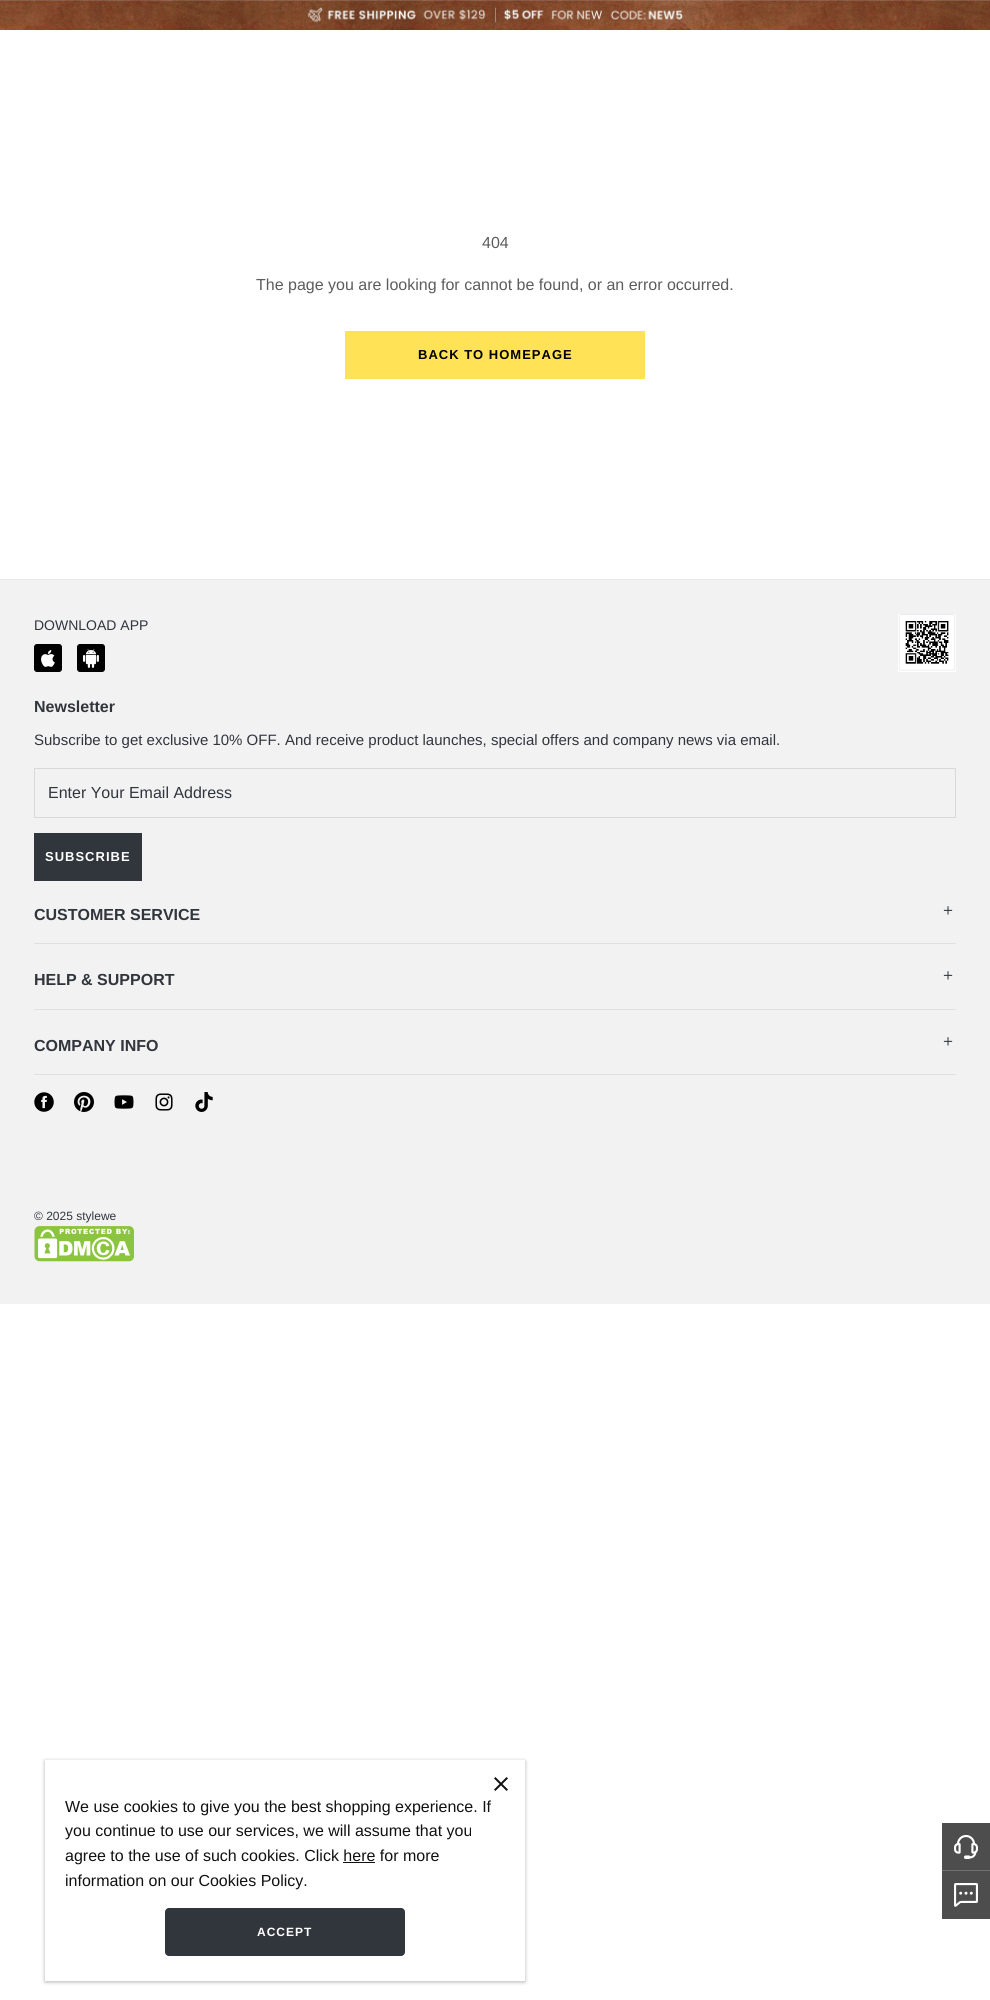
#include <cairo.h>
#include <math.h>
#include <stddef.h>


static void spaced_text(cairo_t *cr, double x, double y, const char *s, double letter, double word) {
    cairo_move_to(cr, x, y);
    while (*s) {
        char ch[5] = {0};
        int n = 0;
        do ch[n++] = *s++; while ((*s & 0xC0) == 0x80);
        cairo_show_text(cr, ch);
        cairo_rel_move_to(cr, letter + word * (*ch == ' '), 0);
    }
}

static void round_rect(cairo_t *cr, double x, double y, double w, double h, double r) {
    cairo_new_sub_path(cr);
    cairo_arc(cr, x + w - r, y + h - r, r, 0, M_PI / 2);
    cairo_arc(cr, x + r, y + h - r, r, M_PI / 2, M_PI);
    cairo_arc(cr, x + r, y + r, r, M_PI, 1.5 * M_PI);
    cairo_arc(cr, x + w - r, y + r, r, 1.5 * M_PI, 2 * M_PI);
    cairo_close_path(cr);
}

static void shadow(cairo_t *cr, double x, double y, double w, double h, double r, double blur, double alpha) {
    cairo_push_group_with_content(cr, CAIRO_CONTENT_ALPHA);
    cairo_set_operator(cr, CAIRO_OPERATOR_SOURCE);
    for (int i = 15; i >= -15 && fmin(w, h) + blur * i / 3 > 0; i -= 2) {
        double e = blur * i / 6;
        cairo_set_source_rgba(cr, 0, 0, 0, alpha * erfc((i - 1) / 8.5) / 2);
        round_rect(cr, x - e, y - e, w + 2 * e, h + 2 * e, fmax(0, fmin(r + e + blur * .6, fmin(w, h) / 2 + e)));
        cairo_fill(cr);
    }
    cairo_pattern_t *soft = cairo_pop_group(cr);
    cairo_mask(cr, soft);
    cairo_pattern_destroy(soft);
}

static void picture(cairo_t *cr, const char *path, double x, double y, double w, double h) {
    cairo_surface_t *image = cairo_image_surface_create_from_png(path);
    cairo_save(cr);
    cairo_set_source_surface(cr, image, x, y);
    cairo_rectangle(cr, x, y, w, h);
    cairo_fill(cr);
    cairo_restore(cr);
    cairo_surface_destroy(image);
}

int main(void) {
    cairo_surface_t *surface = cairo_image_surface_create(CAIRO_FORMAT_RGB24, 990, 2000);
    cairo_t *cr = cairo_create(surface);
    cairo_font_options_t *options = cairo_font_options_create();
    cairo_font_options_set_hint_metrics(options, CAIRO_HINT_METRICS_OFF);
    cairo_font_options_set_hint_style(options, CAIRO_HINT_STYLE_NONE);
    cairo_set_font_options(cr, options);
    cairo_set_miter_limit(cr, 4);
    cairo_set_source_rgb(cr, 1, 1, 1);
    cairo_paint(cr);
    picture(cr, "img1.png", 0, 0, 990, 30);
    cairo_select_font_face(cr, "Liberation Sans", CAIRO_FONT_SLANT_NORMAL, CAIRO_FONT_WEIGHT_NORMAL);
    cairo_set_font_size(cr, 16);
    cairo_set_source_rgb(cr, 0.361, 0.361, 0.361);
    cairo_move_to(cr, 482, 248);
    cairo_show_text(cr, "404");
    cairo_move_to(cr, 256, 290);
    cairo_show_text(cr, "The page you are looking for cannot be found, or an error occurred.");
    cairo_set_source_rgb(cr, 1, 0.886, 0.337);
    cairo_rectangle(cr, 345, 331, 300, 48);
    cairo_fill(cr);
    cairo_select_font_face(cr, "Liberation Sans", CAIRO_FONT_SLANT_NORMAL, CAIRO_FONT_WEIGHT_BOLD);
    cairo_set_font_size(cr, 13);
    cairo_set_source_rgb(cr, 0, 0, 0);
    spaced_text(cr, 418, 359, "BACK TO HOMEPAGE", 1, 0);
    cairo_set_source_rgb(cr, 0.949, 0.949, 0.953);
    cairo_rectangle(cr, 0, 580, 990, 724);
    cairo_fill(cr);
    cairo_set_source_rgb(cr, 0.906, 0.906, 0.906);
    cairo_rectangle(cr, 0, 579, 990, 1);
    cairo_fill(cr);
    cairo_select_font_face(cr, "Liberation Sans", CAIRO_FONT_SLANT_NORMAL, CAIRO_FONT_WEIGHT_NORMAL);
    cairo_set_font_size(cr, 14);
    cairo_set_source_rgb(cr, 0.192, 0.208, 0.235);
    cairo_move_to(cr, 34, 630);
    cairo_show_text(cr, "DOWNLOAD APP");
    picture(cr, "img2.png", 34, 644, 28, 28);
    picture(cr, "img3.png", 77, 644, 28, 28);
    picture(cr, "img4.png", 898, 614, 58, 58);
    cairo_select_font_face(cr, "Liberation Sans", CAIRO_FONT_SLANT_NORMAL, CAIRO_FONT_WEIGHT_BOLD);
    cairo_set_font_size(cr, 16);
    cairo_move_to(cr, 34, 712);
    cairo_show_text(cr, "Newsletter");
    cairo_select_font_face(cr, "Liberation Sans", CAIRO_FONT_SLANT_NORMAL, CAIRO_FONT_WEIGHT_NORMAL);
    cairo_set_font_size(cr, 15);
    cairo_move_to(cr, 34, 745);
    cairo_show_text(cr, "Subscribe to get exclusive 10% OFF. And receive product launches, special offers and company news via email.");
    cairo_rectangle(cr, 34.5, 768.5, 921, 49);
    cairo_set_source_rgb(cr, 0.851, 0.851, 0.851);
    cairo_set_line_width(cr, 1);
    cairo_stroke(cr);
    cairo_set_font_size(cr, 16);
    cairo_set_source_rgb(cr, 0.192, 0.208, 0.235);
    cairo_move_to(cr, 48, 798);
    cairo_show_text(cr, "Enter Your Email Address");
    cairo_rectangle(cr, 34, 833, 108, 48);
    cairo_fill(cr);
    cairo_select_font_face(cr, "Liberation Sans", CAIRO_FONT_SLANT_NORMAL, CAIRO_FONT_WEIGHT_BOLD);
    cairo_set_font_size(cr, 13);
    cairo_set_source_rgb(cr, 1, 1, 1);
    spaced_text(cr, 45, 861, "SUBSCRIBE", 1, 0);
    cairo_set_source_rgb(cr, 0.878, 0.878, 0.878);
    cairo_rectangle(cr, 34, 943, 922, 1);
    cairo_fill(cr);
    cairo_set_font_size(cr, 16);
    cairo_set_source_rgb(cr, 0.192, 0.208, 0.235);
    cairo_move_to(cr, 34, 920);
    cairo_show_text(cr, "CUSTOMER SERVICE");
    cairo_select_font_face(cr, "WenQuanYi Zen Hei Medium", CAIRO_FONT_SLANT_NORMAL, CAIRO_FONT_WEIGHT_NORMAL);
    cairo_move_to(cr, 940, 915);
    cairo_show_text(cr, "＋");
    cairo_set_source_rgb(cr, 0.878, 0.878, 0.878);
    cairo_rectangle(cr, 34, 1009, 922, 1);
    cairo_fill(cr);
    cairo_select_font_face(cr, "Liberation Sans", CAIRO_FONT_SLANT_NORMAL, CAIRO_FONT_WEIGHT_BOLD);
    cairo_set_source_rgb(cr, 0.192, 0.208, 0.235);
    cairo_move_to(cr, 34, 985);
    cairo_show_text(cr, "HELP & SUPPORT");
    cairo_select_font_face(cr, "WenQuanYi Zen Hei Medium", CAIRO_FONT_SLANT_NORMAL, CAIRO_FONT_WEIGHT_NORMAL);
    cairo_move_to(cr, 940, 980);
    cairo_show_text(cr, "＋");
    cairo_set_source_rgb(cr, 0.878, 0.878, 0.878);
    cairo_rectangle(cr, 34, 1074, 922, 1);
    cairo_fill(cr);
    cairo_select_font_face(cr, "Liberation Sans", CAIRO_FONT_SLANT_NORMAL, CAIRO_FONT_WEIGHT_BOLD);
    cairo_set_source_rgb(cr, 0.192, 0.208, 0.235);
    cairo_move_to(cr, 34, 1051);
    cairo_show_text(cr, "COMPANY INFO");
    cairo_select_font_face(cr, "WenQuanYi Zen Hei Medium", CAIRO_FONT_SLANT_NORMAL, CAIRO_FONT_WEIGHT_NORMAL);
    cairo_move_to(cr, 940, 1046);
    cairo_show_text(cr, "＋");
    picture(cr, "img5.png", 34, 1092, 20, 20);
    picture(cr, "img6.png", 74, 1092, 20, 20);
    picture(cr, "img7.png", 114, 1095, 20, 14);
    picture(cr, "img8.png", 155, 1093, 18, 18);
    picture(cr, "img9.png", 195, 1092, 18, 20);
    cairo_select_font_face(cr, "Liberation Sans", CAIRO_FONT_SLANT_NORMAL, CAIRO_FONT_WEIGHT_NORMAL);
    cairo_set_font_size(cr, 12);
    cairo_move_to(cr, 34, 1220);
    cairo_show_text(cr, "© 2025 stylewe");
    picture(cr, "img10.png", 34, 1226, 100, 36);
    cairo_set_source_rgb(cr, 0.302, 0.302, 0.302);
    cairo_rectangle(cr, 942, 1823, 48, 47);
    cairo_fill(cr);
    cairo_set_source_rgb(cr, 0.443, 0.443, 0.443);
    cairo_rectangle(cr, 942, 1870, 48, 1);
    cairo_fill(cr);
    picture(cr, "img11.png", 954, 1835, 24, 24);
    cairo_set_source_rgb(cr, 0.302, 0.302, 0.302);
    cairo_rectangle(cr, 942, 1871, 48, 48);
    cairo_fill(cr);
    picture(cr, "img12.png", 954, 1883, 24, 24);
    cairo_save(cr);
    cairo_set_fill_rule(cr, CAIRO_FILL_RULE_EVEN_ODD);
    cairo_new_path(cr);
    cairo_move_to(cr, 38, 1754);
    cairo_line_to(cr, 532, 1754);
    cairo_line_to(cr, 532, 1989);
    cairo_line_to(cr, 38, 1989);
    cairo_close_path(cr);
    cairo_move_to(cr, 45, 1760);
    cairo_line_to(cr, 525, 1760);
    cairo_line_to(cr, 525, 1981);
    cairo_line_to(cr, 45, 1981);
    cairo_close_path(cr);
    cairo_clip(cr);
    cairo_set_source_rgb(cr, 0, 0, 0);
    shadow(cr, 45, 1761, 480, 221, 0, 2, 0.3);
    cairo_restore(cr);
    picture(cr, "img13.png", 494, 1777, 14, 14);
    cairo_set_font_size(cr, 16);
    cairo_set_source_rgb(cr, 0.067, 0.067, 0.067);
    cairo_move_to(cr, 65, 1812);
    cairo_show_text(cr, "We use cookies to give you the best shopping experience. If");
    cairo_move_to(cr, 65, 1836);
    cairo_show_text(cr, "you continue to use our services, we will assume that you");
    cairo_move_to(cr, 65, 1861);
    cairo_show_text(cr, "agree to the use of such cookies. Click here for more");
    cairo_rectangle(cr, 343, 1862, 32, 1);
    cairo_fill(cr);
    cairo_move_to(cr, 65, 1886);
    cairo_show_text(cr, "information on our Cookies Policy.");
    cairo_set_source_rgb(cr, 0.192, 0.208, 0.235);
    round_rect(cr, 165, 1908, 240, 48, 4);
    cairo_fill(cr);
    cairo_select_font_face(cr, "Liberation Sans", CAIRO_FONT_SLANT_NORMAL, CAIRO_FONT_WEIGHT_BOLD);
    cairo_set_font_size(cr, 12);
    cairo_set_source_rgb(cr, 1, 1, 1);
    spaced_text(cr, 257, 1936, "ACCEPT", 1, 0);
    cairo_surface_write_to_png(surface, "page.png");
    cairo_font_options_destroy(options);
    cairo_destroy(cr);
    cairo_surface_destroy(surface);
    return 0;
}
